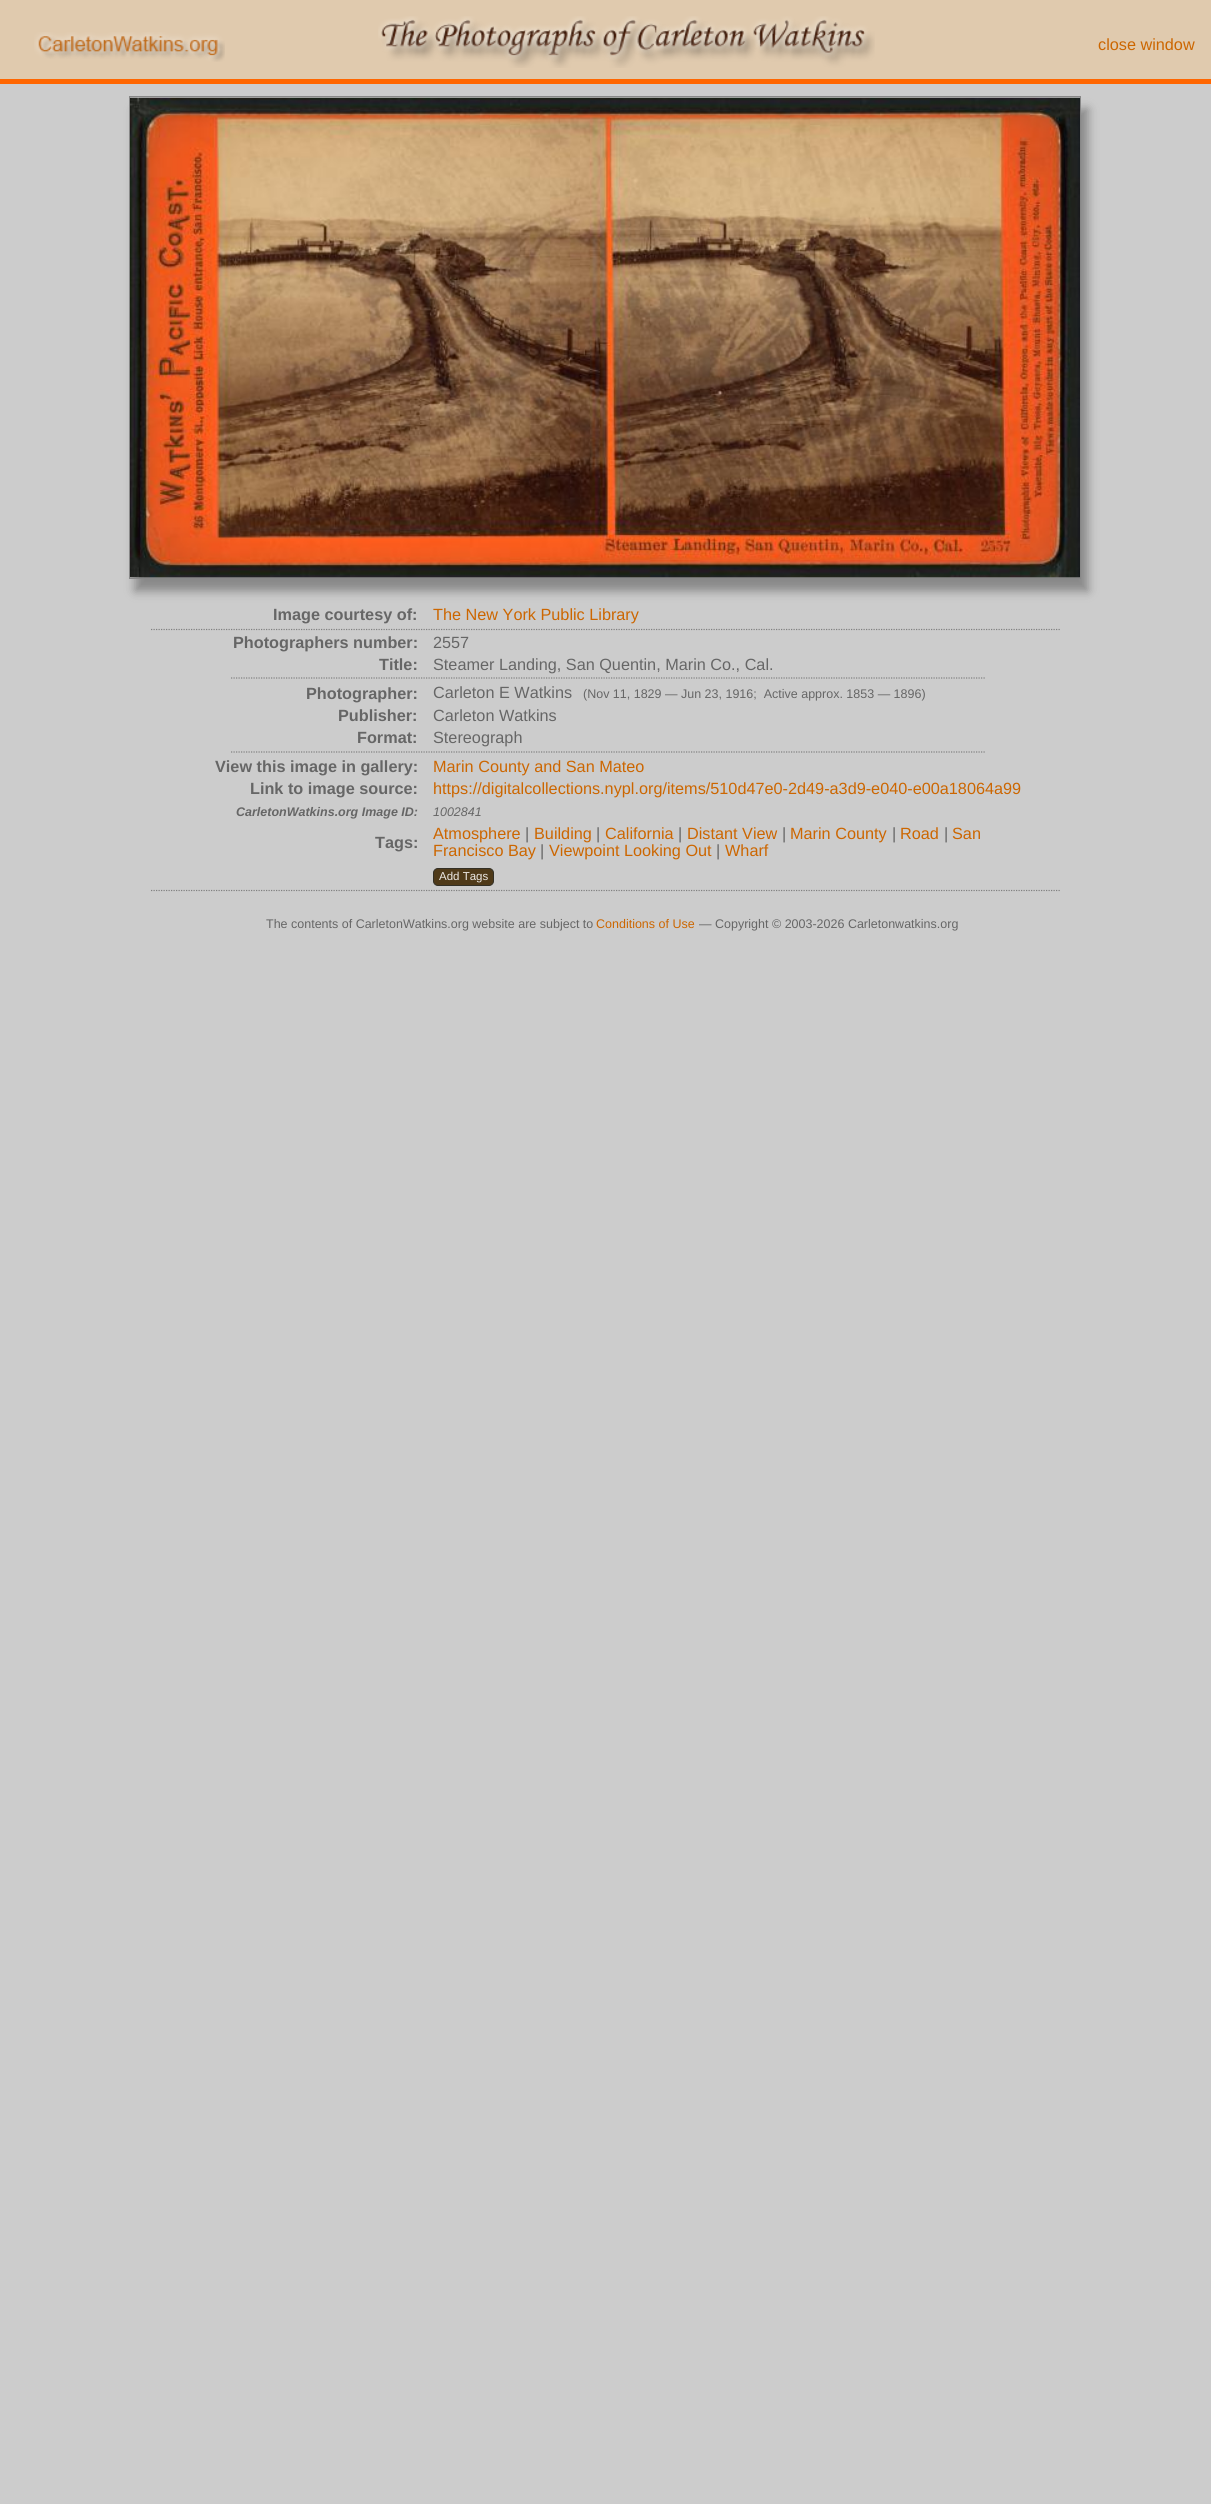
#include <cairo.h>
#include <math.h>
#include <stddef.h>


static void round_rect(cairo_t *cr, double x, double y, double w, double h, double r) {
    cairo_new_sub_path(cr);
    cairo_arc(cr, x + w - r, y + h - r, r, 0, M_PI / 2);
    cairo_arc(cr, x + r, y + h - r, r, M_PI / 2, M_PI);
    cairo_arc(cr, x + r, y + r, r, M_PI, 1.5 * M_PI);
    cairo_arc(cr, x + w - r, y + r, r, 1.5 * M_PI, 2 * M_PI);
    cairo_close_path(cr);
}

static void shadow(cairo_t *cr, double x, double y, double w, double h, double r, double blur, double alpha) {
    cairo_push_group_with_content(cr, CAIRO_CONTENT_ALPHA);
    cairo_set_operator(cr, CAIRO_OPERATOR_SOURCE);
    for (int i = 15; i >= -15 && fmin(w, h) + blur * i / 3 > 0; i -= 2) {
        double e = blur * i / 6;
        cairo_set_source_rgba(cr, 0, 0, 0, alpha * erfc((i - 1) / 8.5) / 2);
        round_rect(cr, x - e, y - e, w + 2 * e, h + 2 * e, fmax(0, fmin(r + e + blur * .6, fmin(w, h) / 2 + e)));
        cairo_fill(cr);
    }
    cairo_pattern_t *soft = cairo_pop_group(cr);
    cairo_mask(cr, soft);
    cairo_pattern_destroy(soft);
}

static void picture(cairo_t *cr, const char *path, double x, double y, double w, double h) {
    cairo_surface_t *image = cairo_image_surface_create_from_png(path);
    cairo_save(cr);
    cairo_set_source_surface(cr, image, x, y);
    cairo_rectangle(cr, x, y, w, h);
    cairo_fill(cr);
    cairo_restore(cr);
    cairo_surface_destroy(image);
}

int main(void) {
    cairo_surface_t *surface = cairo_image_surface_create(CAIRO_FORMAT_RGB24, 1211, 2504);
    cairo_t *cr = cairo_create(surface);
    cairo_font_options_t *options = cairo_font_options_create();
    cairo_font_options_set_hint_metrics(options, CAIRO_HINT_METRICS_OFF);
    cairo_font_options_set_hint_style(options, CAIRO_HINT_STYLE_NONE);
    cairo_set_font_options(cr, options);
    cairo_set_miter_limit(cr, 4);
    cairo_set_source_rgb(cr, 0.8, 0.8, 0.8);
    cairo_paint(cr);
    cairo_set_source_rgb(cr, 0.878, 0.792, 0.682);
    cairo_rectangle(cr, 0, 0, 1211, 79);
    cairo_fill(cr);
    cairo_set_source_rgb(cr, 1, 0.4, 0);
    cairo_rectangle(cr, 0, 79, 1211, 5);
    cairo_fill(cr);
    picture(cr, "img1.png", 34, 32, 191, 30);
    picture(cr, "img2.png", 378, 16, 497, 52);
    cairo_select_font_face(cr, "Liberation Sans", CAIRO_FONT_SLANT_NORMAL, CAIRO_FONT_WEIGHT_NORMAL);
    cairo_set_font_size(cr, 16.25);
    cairo_set_source_rgb(cr, 0.8, 0.4, 0);
    cairo_move_to(cr, 1098, 50);
    cairo_show_text(cr, "close window");
    cairo_set_source_rgb(cr, 0.533, 0.533, 0.533);
    shadow(cr, 135, 109, 953, 482, 0, 5, 1);
    cairo_rectangle(cr, 129.5, 96.5, 951, 482);
    cairo_set_source_rgb(cr, 0.533, 0.533, 0.533);
    cairo_set_line_width(cr, 1);
    cairo_stroke(cr);
    picture(cr, "img3.png", 130, 97, 950, 481);
    cairo_select_font_face(cr, "Liberation Sans", CAIRO_FONT_SLANT_NORMAL, CAIRO_FONT_WEIGHT_BOLD);
    cairo_set_source_rgb(cr, 0.4, 0.4, 0.4);
    cairo_move_to(cr, 273, 620);
    cairo_show_text(cr, "Image courtesy of:");
    cairo_select_font_face(cr, "Liberation Sans", CAIRO_FONT_SLANT_NORMAL, CAIRO_FONT_WEIGHT_NORMAL);
    cairo_set_source_rgb(cr, 0.8, 0.4, 0);
    cairo_move_to(cr, 433, 620);
    cairo_show_text(cr, "The New York Public Library");
    cairo_new_path(cr);
    cairo_move_to(cr, 151, 629.5);
    cairo_line_to(cr, 1060, 629.5);
    cairo_set_source_rgb(cr, 0.502, 0.502, 0.502);
    cairo_set_line_width(cr, 1.2);
    cairo_set_dash(cr, (double[]){1.25, 1.25}, 2, 0);
    cairo_stroke(cr);
    cairo_new_path(cr);
    cairo_move_to(cr, 151, 890.5);
    cairo_line_to(cr, 1060, 890.5);
    cairo_stroke(cr);
    cairo_select_font_face(cr, "Liberation Sans", CAIRO_FONT_SLANT_NORMAL, CAIRO_FONT_WEIGHT_BOLD);
    cairo_set_source_rgb(cr, 0.4, 0.4, 0.4);
    cairo_move_to(cr, 233, 648);
    cairo_show_text(cr, "Photographers number:");
    cairo_select_font_face(cr, "Liberation Sans", CAIRO_FONT_SLANT_NORMAL, CAIRO_FONT_WEIGHT_NORMAL);
    cairo_move_to(cr, 433, 648);
    cairo_show_text(cr, "2557");
    cairo_select_font_face(cr, "Liberation Sans", CAIRO_FONT_SLANT_NORMAL, CAIRO_FONT_WEIGHT_BOLD);
    cairo_move_to(cr, 379, 670);
    cairo_show_text(cr, "Title:");
    cairo_select_font_face(cr, "Liberation Sans", CAIRO_FONT_SLANT_NORMAL, CAIRO_FONT_WEIGHT_NORMAL);
    cairo_move_to(cr, 433, 670);
    cairo_show_text(cr, "Steamer Landing, San Quentin, Marin Co., Cal.");
    cairo_new_path(cr);
    cairo_move_to(cr, 231, 678);
    cairo_line_to(cr, 985, 678);
    cairo_set_source_rgb(cr, 0.502, 0.502, 0.502);
    cairo_stroke(cr);
    cairo_select_font_face(cr, "Liberation Sans", CAIRO_FONT_SLANT_NORMAL, CAIRO_FONT_WEIGHT_BOLD);
    cairo_set_source_rgb(cr, 0.4, 0.4, 0.4);
    cairo_move_to(cr, 306, 699);
    cairo_show_text(cr, "Photographer:");
    cairo_select_font_face(cr, "Liberation Sans", CAIRO_FONT_SLANT_NORMAL, CAIRO_FONT_WEIGHT_NORMAL);
    cairo_move_to(cr, 433, 698);
    cairo_show_text(cr, "Carleton E Watkins");
    cairo_set_font_size(cr, 12.5);
    cairo_move_to(cr, 583, 698);
    cairo_show_text(cr, "(Nov 11, 1829 — Jun 23, 1916;  Active approx. 1853 — 1896)");
    cairo_select_font_face(cr, "Liberation Sans", CAIRO_FONT_SLANT_NORMAL, CAIRO_FONT_WEIGHT_BOLD);
    cairo_set_font_size(cr, 16.25);
    cairo_move_to(cr, 338, 721);
    cairo_show_text(cr, "Publisher:");
    cairo_select_font_face(cr, "Liberation Sans", CAIRO_FONT_SLANT_NORMAL, CAIRO_FONT_WEIGHT_NORMAL);
    cairo_move_to(cr, 433, 721);
    cairo_show_text(cr, "Carleton Watkins");
    cairo_select_font_face(cr, "Liberation Sans", CAIRO_FONT_SLANT_NORMAL, CAIRO_FONT_WEIGHT_BOLD);
    cairo_move_to(cr, 357, 743);
    cairo_show_text(cr, "Format:");
    cairo_select_font_face(cr, "Liberation Sans", CAIRO_FONT_SLANT_NORMAL, CAIRO_FONT_WEIGHT_NORMAL);
    cairo_move_to(cr, 433, 743);
    cairo_show_text(cr, "Stereograph");
    cairo_new_path(cr);
    cairo_move_to(cr, 231, 752);
    cairo_line_to(cr, 985, 752);
    cairo_set_source_rgb(cr, 0.502, 0.502, 0.502);
    cairo_stroke(cr);
    cairo_select_font_face(cr, "Liberation Sans", CAIRO_FONT_SLANT_NORMAL, CAIRO_FONT_WEIGHT_BOLD);
    cairo_set_source_rgb(cr, 0.4, 0.4, 0.4);
    cairo_move_to(cr, 215, 772);
    cairo_show_text(cr, "View this image in gallery:");
    cairo_select_font_face(cr, "Liberation Sans", CAIRO_FONT_SLANT_NORMAL, CAIRO_FONT_WEIGHT_NORMAL);
    cairo_set_source_rgb(cr, 0.8, 0.4, 0);
    cairo_move_to(cr, 433, 772);
    cairo_show_text(cr, "Marin County and San Mateo");
    cairo_select_font_face(cr, "Liberation Sans", CAIRO_FONT_SLANT_NORMAL, CAIRO_FONT_WEIGHT_BOLD);
    cairo_set_source_rgb(cr, 0.4, 0.4, 0.4);
    cairo_move_to(cr, 250, 794);
    cairo_show_text(cr, "Link to image source:");
    cairo_select_font_face(cr, "Liberation Sans", CAIRO_FONT_SLANT_NORMAL, CAIRO_FONT_WEIGHT_NORMAL);
    cairo_set_source_rgb(cr, 0.8, 0.4, 0);
    cairo_move_to(cr, 433, 794);
    cairo_show_text(cr, "https://digitalcollections.nypl.org/items/510d47e0-2d49-a3d9-e040-e00a18064a99");
    cairo_select_font_face(cr, "Liberation Sans", CAIRO_FONT_SLANT_ITALIC, CAIRO_FONT_WEIGHT_BOLD);
    cairo_set_font_size(cr, 12.5);
    cairo_set_source_rgb(cr, 0.4, 0.4, 0.4);
    cairo_move_to(cr, 236, 816);
    cairo_show_text(cr, "CarletonWatkins.org Image ID:");
    cairo_select_font_face(cr, "Liberation Sans", CAIRO_FONT_SLANT_ITALIC, CAIRO_FONT_WEIGHT_NORMAL);
    cairo_move_to(cr, 433, 816);
    cairo_show_text(cr, "1002841");
    cairo_select_font_face(cr, "Liberation Sans", CAIRO_FONT_SLANT_NORMAL, CAIRO_FONT_WEIGHT_BOLD);
    cairo_set_font_size(cr, 16.25);
    cairo_move_to(cr, 375, 848);
    cairo_show_text(cr, "Tags:");
    cairo_select_font_face(cr, "Liberation Sans", CAIRO_FONT_SLANT_NORMAL, CAIRO_FONT_WEIGHT_NORMAL);
    cairo_set_source_rgb(cr, 0.8, 0.4, 0);
    cairo_move_to(cr, 433, 839);
    cairo_show_text(cr, "Atmosphere");
    cairo_set_source_rgb(cr, 0.4, 0.4, 0.4);
    cairo_move_to(cr, 525, 839);
    cairo_show_text(cr, "|");
    cairo_set_source_rgb(cr, 0.8, 0.4, 0);
    cairo_move_to(cr, 534, 839);
    cairo_show_text(cr, "Building");
    cairo_set_source_rgb(cr, 0.4, 0.4, 0.4);
    cairo_move_to(cr, 596, 839);
    cairo_show_text(cr, "|");
    cairo_set_source_rgb(cr, 0.8, 0.4, 0);
    cairo_move_to(cr, 605, 839);
    cairo_show_text(cr, "California");
    cairo_set_source_rgb(cr, 0.4, 0.4, 0.4);
    cairo_move_to(cr, 678, 839);
    cairo_show_text(cr, "|");
    cairo_set_source_rgb(cr, 0.8, 0.4, 0);
    cairo_move_to(cr, 687, 839);
    cairo_show_text(cr, "Distant View");
    cairo_set_source_rgb(cr, 0.4, 0.4, 0.4);
    cairo_move_to(cr, 782, 839);
    cairo_show_text(cr, "|");
    cairo_set_source_rgb(cr, 0.8, 0.4, 0);
    cairo_move_to(cr, 790, 839);
    cairo_show_text(cr, "Marin County");
    cairo_set_source_rgb(cr, 0.4, 0.4, 0.4);
    cairo_move_to(cr, 892, 839);
    cairo_show_text(cr, "|");
    cairo_set_source_rgb(cr, 0.8, 0.4, 0);
    cairo_move_to(cr, 900, 839);
    cairo_show_text(cr, "Road");
    cairo_set_source_rgb(cr, 0.4, 0.4, 0.4);
    cairo_move_to(cr, 944, 839);
    cairo_show_text(cr, "|");
    cairo_set_source_rgb(cr, 0.8, 0.4, 0);
    cairo_move_to(cr, 952, 839);
    cairo_show_text(cr, "San");
    cairo_move_to(cr, 433, 856);
    cairo_show_text(cr, "Francisco Bay");
    cairo_set_source_rgb(cr, 0.4, 0.4, 0.4);
    cairo_move_to(cr, 540, 856);
    cairo_show_text(cr, "|");
    cairo_set_source_rgb(cr, 0.8, 0.4, 0);
    cairo_move_to(cr, 549, 856);
    cairo_show_text(cr, "Viewpoint Looking Out");
    cairo_set_source_rgb(cr, 0.4, 0.4, 0.4);
    cairo_move_to(cr, 716, 856);
    cairo_show_text(cr, "|");
    cairo_set_source_rgb(cr, 0.8, 0.4, 0);
    cairo_move_to(cr, 725, 856);
    cairo_show_text(cr, "Wharf");
    cairo_set_source_rgb(cr, 0.31, 0.227, 0.098);
    round_rect(cr, 433.5, 868.5, 60, 17, 4.5);
    cairo_fill_preserve(cr);
    cairo_set_source_rgb(cr, 0.2, 0.188, 0.149);
    cairo_set_line_width(cr, 1);
    cairo_set_dash(cr, NULL, 0, 0);
    cairo_stroke(cr);
    cairo_set_font_size(cr, 11.5);
    cairo_set_source_rgb(cr, 0.929, 0.914, 0.898);
    cairo_move_to(cr, 439, 880);
    cairo_show_text(cr, "Add Tags");
    cairo_set_font_size(cr, 12.5);
    cairo_set_source_rgb(cr, 0.4, 0.4, 0.4);
    cairo_move_to(cr, 266, 928);
    cairo_show_text(cr, "The contents of CarletonWatkins.org website are subject to");
    cairo_set_source_rgb(cr, 0.8, 0.4, 0);
    cairo_move_to(cr, 596, 928);
    cairo_show_text(cr, "Conditions of Use");
    cairo_set_source_rgb(cr, 0.4, 0.4, 0.4);
    cairo_move_to(cr, 699, 928);
    cairo_show_text(cr, "— Copyright © 2003-2026 Carletonwatkins.org");
    cairo_surface_write_to_png(surface, "page.png");
    cairo_font_options_destroy(options);
    cairo_destroy(cr);
    cairo_surface_destroy(surface);
    return 0;
}
